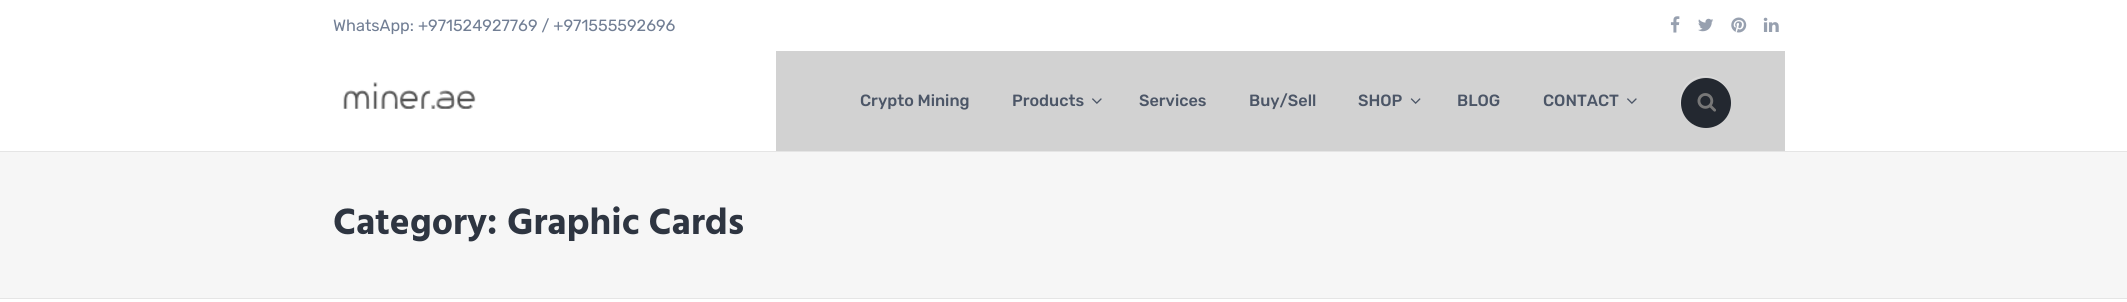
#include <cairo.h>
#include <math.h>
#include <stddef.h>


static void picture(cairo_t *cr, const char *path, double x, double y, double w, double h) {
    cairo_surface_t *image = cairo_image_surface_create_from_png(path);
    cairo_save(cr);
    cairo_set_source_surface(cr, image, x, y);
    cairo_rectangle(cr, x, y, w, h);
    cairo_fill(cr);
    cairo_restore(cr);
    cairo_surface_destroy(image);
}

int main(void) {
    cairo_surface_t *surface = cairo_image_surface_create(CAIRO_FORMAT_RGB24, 2127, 302);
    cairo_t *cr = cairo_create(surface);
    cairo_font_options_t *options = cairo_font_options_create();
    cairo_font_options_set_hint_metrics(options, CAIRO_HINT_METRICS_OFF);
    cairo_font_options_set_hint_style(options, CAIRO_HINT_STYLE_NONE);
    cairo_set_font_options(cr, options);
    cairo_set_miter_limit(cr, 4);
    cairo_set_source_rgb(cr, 1, 1, 1);
    cairo_paint(cr);
    cairo_select_font_face(cr, "Rubik", CAIRO_FONT_SLANT_NORMAL, CAIRO_FONT_WEIGHT_NORMAL);
    cairo_set_font_size(cr, 16.25);
    cairo_set_source_rgb(cr, 0.443, 0.494, 0.58);
    cairo_move_to(cr, 333, 31);
    cairo_show_text(cr, "WhatsApp: +971524927769 / +971555592696");
    picture(cr, "img1.png", 1670, 16, 10, 17);
    picture(cr, "img2.png", 1698, 18, 16, 14);
    picture(cr, "img3.png", 1731, 17, 16, 16);
    picture(cr, "img4.png", 1763, 17, 16, 15);
    picture(cr, "img5.png", 343, 82, 133, 27);
    cairo_set_source_rgb(cr, 0.824, 0.824, 0.824);
    cairo_rectangle(cr, 776, 51, 1009, 100);
    cairo_fill(cr);
    cairo_select_font_face(cr, "Rubik Medium", CAIRO_FONT_SLANT_NORMAL, CAIRO_FONT_WEIGHT_NORMAL);
    cairo_set_source_rgb(cr, 0.298, 0.337, 0.404);
    cairo_move_to(cr, 860, 106);
    cairo_show_text(cr, "Crypto Mining");
    cairo_move_to(cr, 1012, 106);
    cairo_show_text(cr, "Products");
    picture(cr, "img6.png", 1092, 98, 10, 6);
    cairo_move_to(cr, 1139, 106);
    cairo_show_text(cr, "Services");
    cairo_move_to(cr, 1249, 106);
    cairo_show_text(cr, "Buy/Sell");
    cairo_move_to(cr, 1358, 106);
    cairo_show_text(cr, "SHOP");
    picture(cr, "img7.png", 1410, 98, 11, 6);
    cairo_move_to(cr, 1457, 106);
    cairo_show_text(cr, "BLOG");
    cairo_move_to(cr, 1543, 106);
    cairo_show_text(cr, "CONTACT");
    picture(cr, "img6.png", 1627, 98, 10, 6);
    cairo_arc(cr, 1705, 101, 24.5, 0, 2 * M_PI);
    cairo_set_source_rgb(cr, 0.867, 0.867, 0.867);
    cairo_set_line_width(cr, 1);
    cairo_stroke(cr);
    cairo_set_source_rgb(cr, 0.137, 0.157, 0.188);
    cairo_arc(cr, 1706, 103, 25, 0, 2 * M_PI);
    cairo_fill(cr);
    picture(cr, "img8.png", 1697, 93, 19, 19);
    cairo_set_source_rgb(cr, 0.961, 0.961, 0.961);
    cairo_rectangle(cr, 0, 152, 2127, 146);
    cairo_fill(cr);
    cairo_set_source_rgb(cr, 0.898, 0.898, 0.898);
    cairo_rectangle(cr, 0, 151, 2127, 1);
    cairo_fill(cr);
    cairo_rectangle(cr, 0, 298, 2127, 1);
    cairo_fill(cr);
    cairo_select_font_face(cr, "Hind", CAIRO_FONT_SLANT_NORMAL, CAIRO_FONT_WEIGHT_BOLD);
    cairo_set_font_size(cr, 37.5);
    cairo_set_source_rgb(cr, 0.18, 0.208, 0.255);
    cairo_move_to(cr, 333, 234);
    cairo_show_text(cr, "Category: Graphic Cards");
    cairo_surface_write_to_png(surface, "page.png");
    cairo_font_options_destroy(options);
    cairo_destroy(cr);
    cairo_surface_destroy(surface);
    return 0;
}
